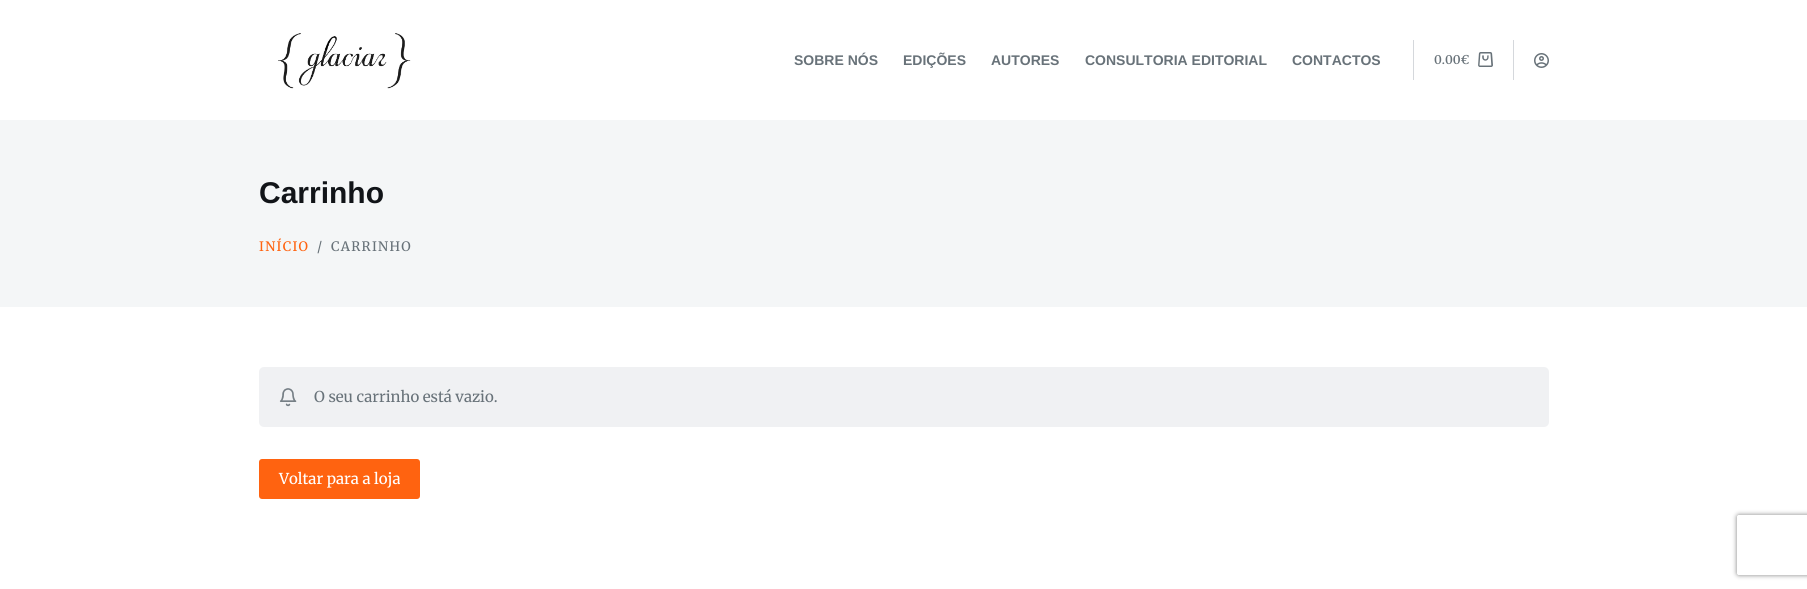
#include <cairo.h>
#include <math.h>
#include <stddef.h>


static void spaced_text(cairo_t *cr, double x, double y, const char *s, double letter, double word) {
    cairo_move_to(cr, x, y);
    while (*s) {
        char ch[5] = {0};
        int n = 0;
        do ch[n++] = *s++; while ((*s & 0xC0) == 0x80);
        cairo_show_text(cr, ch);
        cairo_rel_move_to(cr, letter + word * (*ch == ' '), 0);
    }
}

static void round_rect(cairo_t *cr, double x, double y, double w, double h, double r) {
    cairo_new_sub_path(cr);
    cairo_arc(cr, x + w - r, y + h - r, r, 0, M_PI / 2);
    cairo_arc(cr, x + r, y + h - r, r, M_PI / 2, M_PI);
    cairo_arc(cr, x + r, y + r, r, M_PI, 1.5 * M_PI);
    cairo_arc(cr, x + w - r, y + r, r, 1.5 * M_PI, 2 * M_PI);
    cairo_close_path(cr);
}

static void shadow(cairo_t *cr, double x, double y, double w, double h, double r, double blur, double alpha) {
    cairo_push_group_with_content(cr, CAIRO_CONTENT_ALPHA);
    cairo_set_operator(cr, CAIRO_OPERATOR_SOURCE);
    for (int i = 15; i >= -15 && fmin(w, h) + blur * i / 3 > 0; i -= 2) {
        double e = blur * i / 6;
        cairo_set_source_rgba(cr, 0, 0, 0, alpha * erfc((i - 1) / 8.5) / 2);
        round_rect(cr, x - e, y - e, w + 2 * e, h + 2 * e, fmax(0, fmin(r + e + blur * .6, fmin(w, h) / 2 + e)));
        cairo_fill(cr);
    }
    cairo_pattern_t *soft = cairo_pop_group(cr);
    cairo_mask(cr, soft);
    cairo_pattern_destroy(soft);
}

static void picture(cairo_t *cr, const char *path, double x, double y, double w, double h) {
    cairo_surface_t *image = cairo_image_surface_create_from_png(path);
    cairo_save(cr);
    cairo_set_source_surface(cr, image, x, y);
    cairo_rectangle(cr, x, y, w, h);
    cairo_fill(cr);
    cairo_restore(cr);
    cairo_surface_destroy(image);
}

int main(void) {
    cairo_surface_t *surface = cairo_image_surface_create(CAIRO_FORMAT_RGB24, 1807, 589);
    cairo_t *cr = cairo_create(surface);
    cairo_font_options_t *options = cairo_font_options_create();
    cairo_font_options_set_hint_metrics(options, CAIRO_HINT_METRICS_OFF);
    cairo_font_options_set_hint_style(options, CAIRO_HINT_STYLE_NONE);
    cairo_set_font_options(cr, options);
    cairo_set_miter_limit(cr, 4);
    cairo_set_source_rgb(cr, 1, 1, 1);
    cairo_paint(cr);
    picture(cr, "img1.png", 278, 33, 133, 56);
    cairo_select_font_face(cr, "Liberation Sans", CAIRO_FONT_SLANT_NORMAL, CAIRO_FONT_WEIGHT_BOLD);
    cairo_set_font_size(cr, 14);
    cairo_set_source_rgb(cr, 0.408, 0.447, 0.475);
    cairo_move_to(cr, 794, 65);
    cairo_show_text(cr, "SOBRE NÓS");
    cairo_move_to(cr, 903, 65);
    cairo_show_text(cr, "EDIÇÕES");
    cairo_move_to(cr, 991, 65);
    cairo_show_text(cr, "AUTORES");
    cairo_move_to(cr, 1085, 65);
    cairo_show_text(cr, "CONSULTORIA EDITORIAL");
    cairo_move_to(cr, 1292, 65);
    cairo_show_text(cr, "CONTACTOS");
    cairo_set_source_rgb(cr, 0.835, 0.847, 0.863);
    cairo_rectangle(cr, 1413, 40, 1, 40);
    cairo_fill(cr);
    cairo_select_font_face(cr, "Merriweather SemiBold", CAIRO_FONT_SLANT_NORMAL, CAIRO_FONT_WEIGHT_NORMAL);
    cairo_set_font_size(cr, 12);
    cairo_set_source_rgb(cr, 0.408, 0.447, 0.475);
    cairo_move_to(cr, 1434, 64);
    cairo_show_text(cr, "0.00€");
    picture(cr, "img2.png", 1478, 52, 15, 15);
    cairo_set_source_rgb(cr, 0.835, 0.847, 0.863);
    cairo_rectangle(cr, 1513, 40, 1, 40);
    cairo_fill(cr);
    picture(cr, "img3.png", 1534, 53, 15, 15);
    cairo_set_source_rgb(cr, 0.957, 0.961, 0.965);
    cairo_rectangle(cr, 0, 120, 1807, 187);
    cairo_fill(cr);
    cairo_select_font_face(cr, "Liberation Sans", CAIRO_FONT_SLANT_NORMAL, CAIRO_FONT_WEIGHT_BOLD);
    cairo_set_font_size(cr, 30);
    cairo_set_source_rgb(cr, 0.067, 0.082, 0.094);
    cairo_move_to(cr, 259, 203);
    cairo_show_text(cr, "Carrinho");
    cairo_select_font_face(cr, "Merriweather Medium", CAIRO_FONT_SLANT_NORMAL, CAIRO_FONT_WEIGHT_NORMAL);
    cairo_set_font_size(cr, 13);
    cairo_set_source_rgb(cr, 1, 0.388, 0.063);
    spaced_text(cr, 259, 251, "INÍCIO", 1.25, 0);
    cairo_set_source_rgb(cr, 0.408, 0.447, 0.475);
    spaced_text(cr, 317, 251, "/", 1.25, 0);
    spaced_text(cr, 331, 251, "CARRINHO", 1.25, 0);
    cairo_set_source_rgb(cr, 0.941, 0.945, 0.953);
    round_rect(cr, 259, 367, 1290, 60, 5);
    cairo_fill(cr);
    picture(cr, "img4.png", 279, 388, 18, 19);
    cairo_select_font_face(cr, "Merriweather", CAIRO_FONT_SLANT_NORMAL, CAIRO_FONT_WEIGHT_NORMAL);
    cairo_set_font_size(cr, 15);
    cairo_set_source_rgb(cr, 0.408, 0.447, 0.475);
    cairo_move_to(cr, 314, 402);
    cairo_show_text(cr, "O seu carrinho está vazio.");
    cairo_set_source_rgb(cr, 1, 0.388, 0.063);
    round_rect(cr, 259, 459, 161, 40, 3);
    cairo_fill(cr);
    cairo_select_font_face(cr, "Merriweather Medium", CAIRO_FONT_SLANT_NORMAL, CAIRO_FONT_WEIGHT_NORMAL);
    cairo_set_source_rgb(cr, 1, 1, 1);
    cairo_move_to(cr, 279, 484);
    cairo_show_text(cr, "Voltar para a loja");
    cairo_save(cr);
    cairo_set_fill_rule(cr, CAIRO_FILL_RULE_EVEN_ODD);
    cairo_new_path(cr);
    cairo_move_to(cr, 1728, 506);
    cairo_line_to(cr, 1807, 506);
    cairo_line_to(cr, 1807, 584);
    cairo_line_to(cr, 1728, 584);
    cairo_close_path(cr);
    cairo_move_to(cr, 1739, 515);
    cairo_line_to(cr, 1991, 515);
    cairo_curve_to(cr, 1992, 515, 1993, 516, 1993, 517);
    cairo_line_to(cr, 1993, 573);
    cairo_curve_to(cr, 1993, 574, 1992, 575, 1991, 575);
    cairo_line_to(cr, 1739, 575);
    cairo_curve_to(cr, 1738, 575, 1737, 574, 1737, 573);
    cairo_line_to(cr, 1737, 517);
    cairo_curve_to(cr, 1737, 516, 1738, 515, 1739, 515);
    cairo_close_path(cr);
    cairo_clip(cr);
    cairo_set_source_rgb(cr, 0.502, 0.502, 0.502);
    shadow(cr, 1737, 515, 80, 60, 2, 2.5, 1);
    cairo_restore(cr);
    cairo_surface_write_to_png(surface, "page.png");
    cairo_font_options_destroy(options);
    cairo_destroy(cr);
    cairo_surface_destroy(surface);
    return 0;
}
